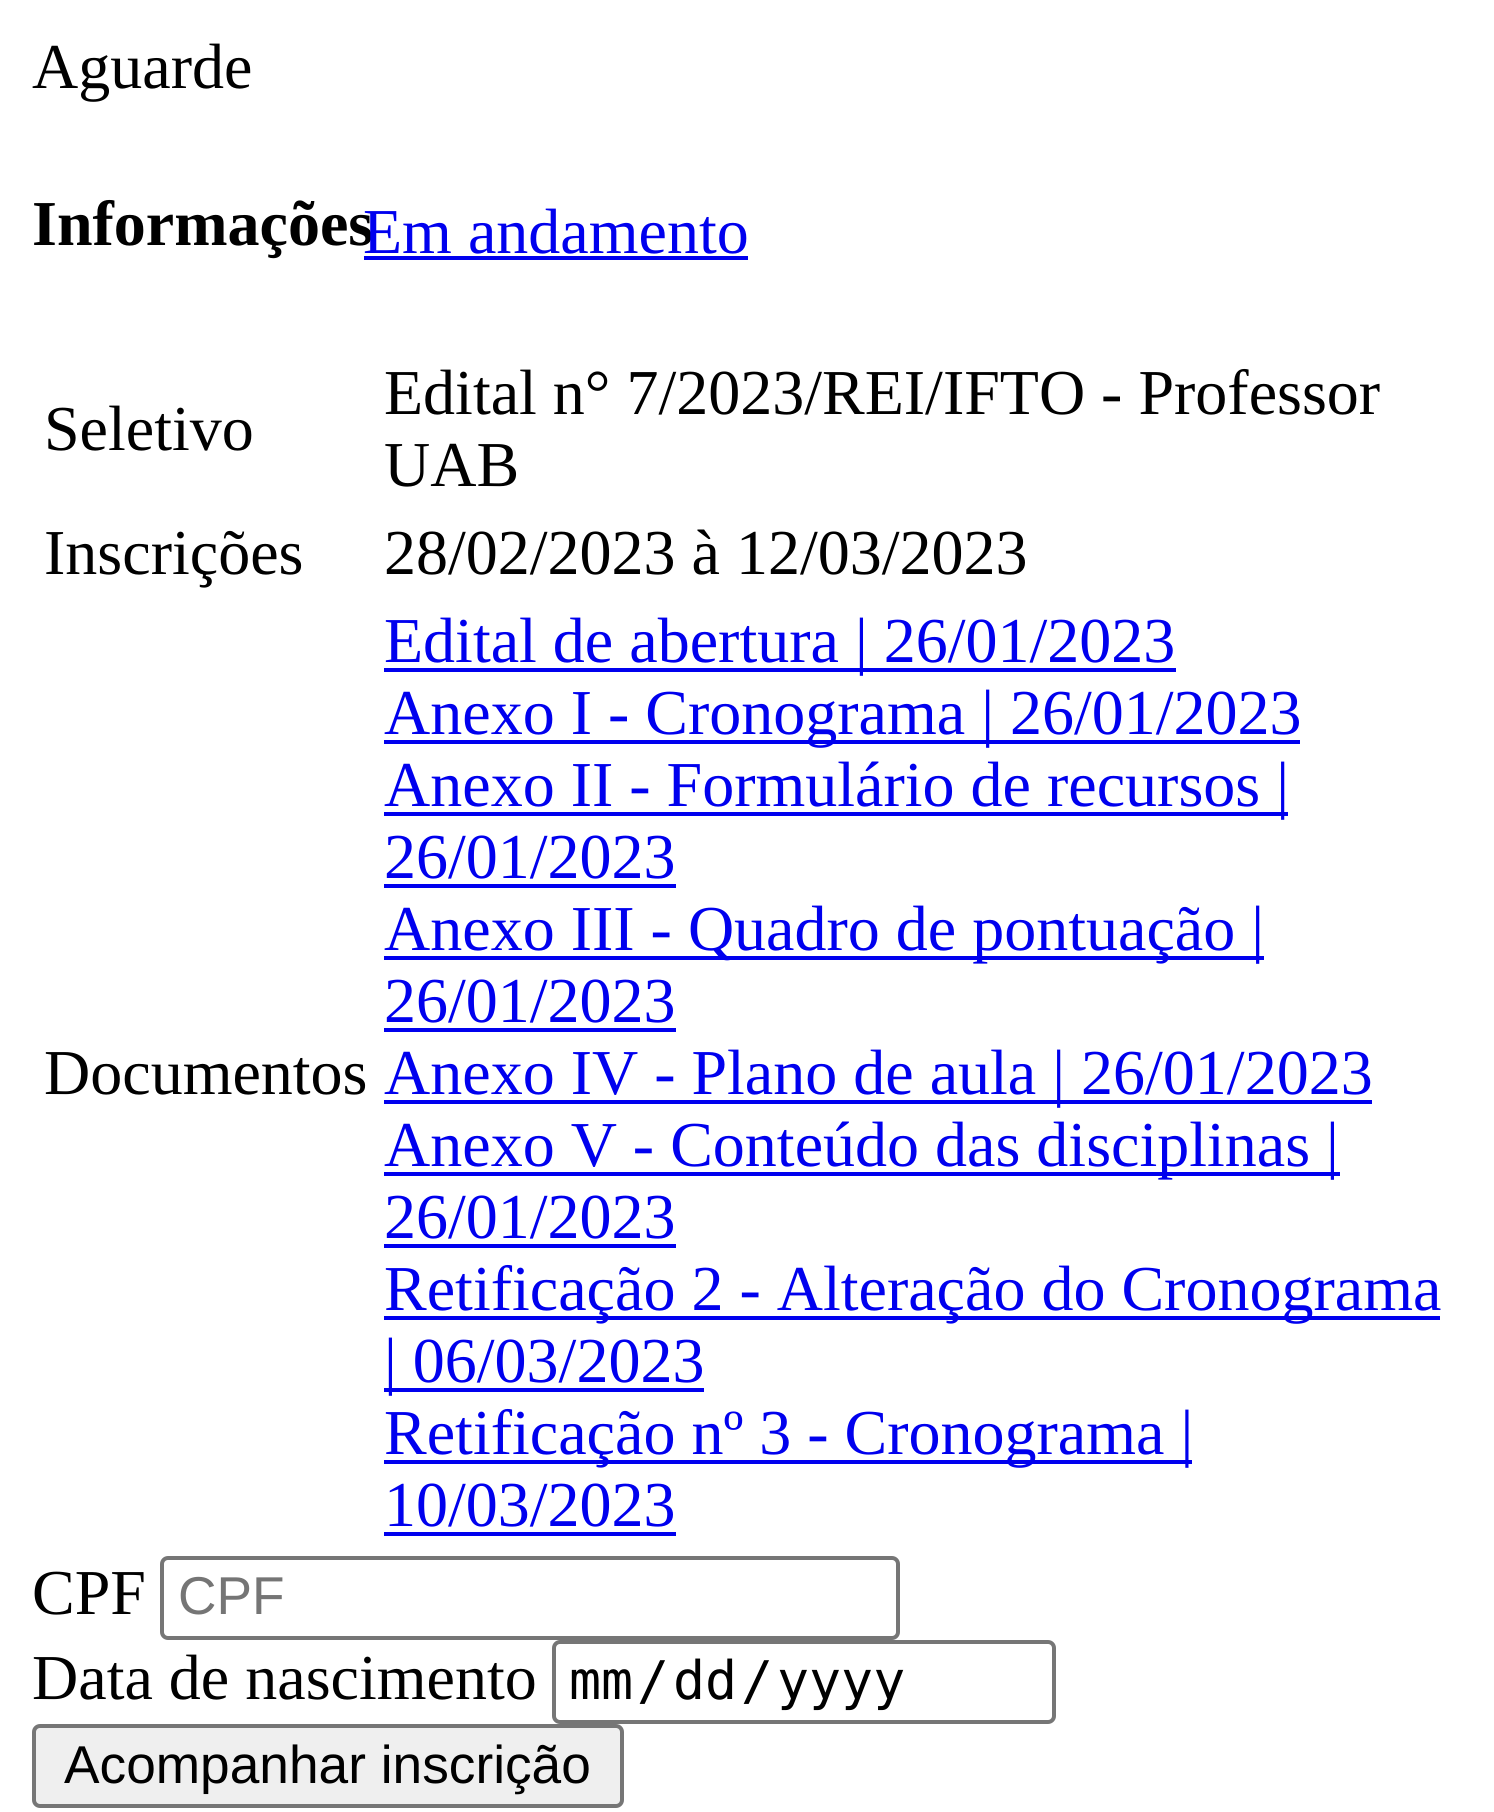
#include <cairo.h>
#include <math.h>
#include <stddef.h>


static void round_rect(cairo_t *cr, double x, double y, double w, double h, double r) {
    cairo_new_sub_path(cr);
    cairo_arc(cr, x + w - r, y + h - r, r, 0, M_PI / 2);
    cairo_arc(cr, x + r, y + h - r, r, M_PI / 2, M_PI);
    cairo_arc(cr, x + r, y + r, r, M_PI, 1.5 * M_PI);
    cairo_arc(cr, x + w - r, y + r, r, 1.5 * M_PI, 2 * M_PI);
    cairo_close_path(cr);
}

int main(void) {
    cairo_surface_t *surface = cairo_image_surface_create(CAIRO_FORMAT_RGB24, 1494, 1812);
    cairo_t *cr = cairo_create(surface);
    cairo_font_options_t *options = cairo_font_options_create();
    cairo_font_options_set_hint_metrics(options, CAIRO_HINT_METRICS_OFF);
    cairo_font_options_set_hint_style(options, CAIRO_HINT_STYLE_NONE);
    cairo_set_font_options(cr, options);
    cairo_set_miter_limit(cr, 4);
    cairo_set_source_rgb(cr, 1, 1, 1);
    cairo_paint(cr);
    cairo_select_font_face(cr, "Liberation Serif", CAIRO_FONT_SLANT_NORMAL, CAIRO_FONT_WEIGHT_NORMAL);
    cairo_set_font_size(cr, 64);
    cairo_set_source_rgb(cr, 0, 0, 0);
    cairo_move_to(cr, 32, 88);
    cairo_show_text(cr, "Aguarde");
    cairo_select_font_face(cr, "Liberation Serif", CAIRO_FONT_SLANT_NORMAL, CAIRO_FONT_WEIGHT_BOLD);
    cairo_move_to(cr, 32, 245);
    cairo_show_text(cr, "Informações");
    cairo_select_font_face(cr, "Liberation Serif", CAIRO_FONT_SLANT_NORMAL, CAIRO_FONT_WEIGHT_NORMAL);
    cairo_move_to(cr, 44, 450);
    cairo_show_text(cr, "Seletivo");
    cairo_move_to(cr, 384, 414);
    cairo_show_text(cr, "Edital n° 7/2023/REI/IFTO - Professor");
    cairo_move_to(cr, 384, 486);
    cairo_show_text(cr, "UAB");
    cairo_move_to(cr, 44, 574);
    cairo_show_text(cr, "Inscrições");
    cairo_move_to(cr, 384, 574);
    cairo_show_text(cr, "28/02/2023 à 12/03/2023");
    cairo_move_to(cr, 44, 1094);
    cairo_show_text(cr, "Documentos");
    cairo_set_source_rgb(cr, 0, 0, 0.933);
    cairo_rectangle(cr, 384, 668, 792, 4);
    cairo_fill(cr);
    cairo_move_to(cr, 384, 662);
    cairo_show_text(cr, "Edital de abertura | 26/01/2023");
    cairo_rectangle(cr, 384, 740, 916, 4);
    cairo_fill(cr);
    cairo_move_to(cr, 384, 734);
    cairo_show_text(cr, "Anexo I - Cronograma | 26/01/2023");
    cairo_rectangle(cr, 384, 812, 904, 4);
    cairo_fill(cr);
    cairo_move_to(cr, 384, 806);
    cairo_show_text(cr, "Anexo II - Formulário de recursos |");
    cairo_move_to(cr, 384, 878);
    cairo_show_text(cr, "26/01/2023");
    cairo_rectangle(cr, 384, 884, 292, 4);
    cairo_fill(cr);
    cairo_rectangle(cr, 384, 956, 880, 4);
    cairo_fill(cr);
    cairo_move_to(cr, 384, 950);
    cairo_show_text(cr, "Anexo III - Quadro de pontuação |");
    cairo_move_to(cr, 384, 1022);
    cairo_show_text(cr, "26/01/2023");
    cairo_rectangle(cr, 384, 1028, 292, 4);
    cairo_fill(cr);
    cairo_rectangle(cr, 384, 1100, 988, 4);
    cairo_fill(cr);
    cairo_move_to(cr, 384, 1094);
    cairo_show_text(cr, "Anexo IV - Plano de aula | 26/01/2023");
    cairo_rectangle(cr, 384, 1172, 956, 4);
    cairo_fill(cr);
    cairo_move_to(cr, 384, 1166);
    cairo_show_text(cr, "Anexo V - Conteúdo das disciplinas |");
    cairo_move_to(cr, 384, 1238);
    cairo_show_text(cr, "26/01/2023");
    cairo_rectangle(cr, 384, 1244, 292, 4);
    cairo_fill(cr);
    cairo_rectangle(cr, 384, 1316, 1056, 4);
    cairo_fill(cr);
    cairo_move_to(cr, 384, 1310);
    cairo_show_text(cr, "Retificação 2 - Alteração do Cronograma");
    cairo_rectangle(cr, 384, 1388, 320, 4);
    cairo_fill(cr);
    cairo_move_to(cr, 384, 1382);
    cairo_show_text(cr, "| 06/03/2023");
    cairo_rectangle(cr, 384, 1460, 808, 4);
    cairo_fill(cr);
    cairo_move_to(cr, 384, 1454);
    cairo_show_text(cr, "Retificação nº 3 - Cronograma |");
    cairo_move_to(cr, 384, 1526);
    cairo_show_text(cr, "10/03/2023");
    cairo_rectangle(cr, 384, 1532, 292, 4);
    cairo_fill(cr);
    cairo_set_source_rgb(cr, 0, 0, 0);
    cairo_move_to(cr, 32, 1614);
    cairo_show_text(cr, "CPF");
    round_rect(cr, 162, 1558, 736, 80, 6);
    cairo_set_source_rgb(cr, 0.463, 0.463, 0.463);
    cairo_set_line_width(cr, 4);
    cairo_stroke(cr);
    cairo_select_font_face(cr, "Liberation Sans", CAIRO_FONT_SLANT_NORMAL, CAIRO_FONT_WEIGHT_NORMAL);
    cairo_set_font_size(cr, 53.25);
    cairo_set_source_rgb(cr, 0.459, 0.459, 0.459);
    cairo_move_to(cr, 178, 1614);
    cairo_show_text(cr, "CPF");
    cairo_select_font_face(cr, "Liberation Serif", CAIRO_FONT_SLANT_NORMAL, CAIRO_FONT_WEIGHT_NORMAL);
    cairo_set_font_size(cr, 64);
    cairo_set_source_rgb(cr, 0, 0, 0);
    cairo_move_to(cr, 32, 1699);
    cairo_show_text(cr, "Data de nascimento");
    round_rect(cr, 554, 1642, 500, 80, 6);
    cairo_set_source_rgb(cr, 0.463, 0.463, 0.463);
    cairo_stroke(cr);
    cairo_select_font_face(cr, "DejaVu Sans Mono", CAIRO_FONT_SLANT_NORMAL, CAIRO_FONT_WEIGHT_NORMAL);
    cairo_set_font_size(cr, 53.25);
    cairo_set_source_rgb(cr, 0, 0, 0);
    cairo_move_to(cr, 569, 1699);
    cairo_show_text(cr, "mm");
    cairo_move_to(cr, 637, 1699);
    cairo_show_text(cr, "/");
    cairo_move_to(cr, 673, 1699);
    cairo_show_text(cr, "dd");
    cairo_move_to(cr, 741, 1699);
    cairo_show_text(cr, "/");
    cairo_move_to(cr, 777, 1699);
    cairo_show_text(cr, "yyyy");
    cairo_set_source_rgb(cr, 0.937, 0.937, 0.937);
    round_rect(cr, 34, 1726, 588, 80, 6);
    cairo_fill_preserve(cr);
    cairo_set_source_rgb(cr, 0.463, 0.463, 0.463);
    cairo_stroke(cr);
    cairo_select_font_face(cr, "Liberation Sans", CAIRO_FONT_SLANT_NORMAL, CAIRO_FONT_WEIGHT_NORMAL);
    cairo_set_source_rgb(cr, 0, 0, 0);
    cairo_move_to(cr, 64, 1783);
    cairo_show_text(cr, "Acompanhar inscrição");
    cairo_select_font_face(cr, "Liberation Serif", CAIRO_FONT_SLANT_NORMAL, CAIRO_FONT_WEIGHT_NORMAL);
    cairo_set_font_size(cr, 64);
    cairo_set_source_rgb(cr, 0, 0, 0.933);
    cairo_move_to(cr, 363, 253);
    cairo_show_text(cr, "Em andamento");
    cairo_rectangle(cr, 364, 256, 384, 4);
    cairo_fill(cr);
    cairo_surface_write_to_png(surface, "page.png");
    cairo_font_options_destroy(options);
    cairo_destroy(cr);
    cairo_surface_destroy(surface);
    return 0;
}
